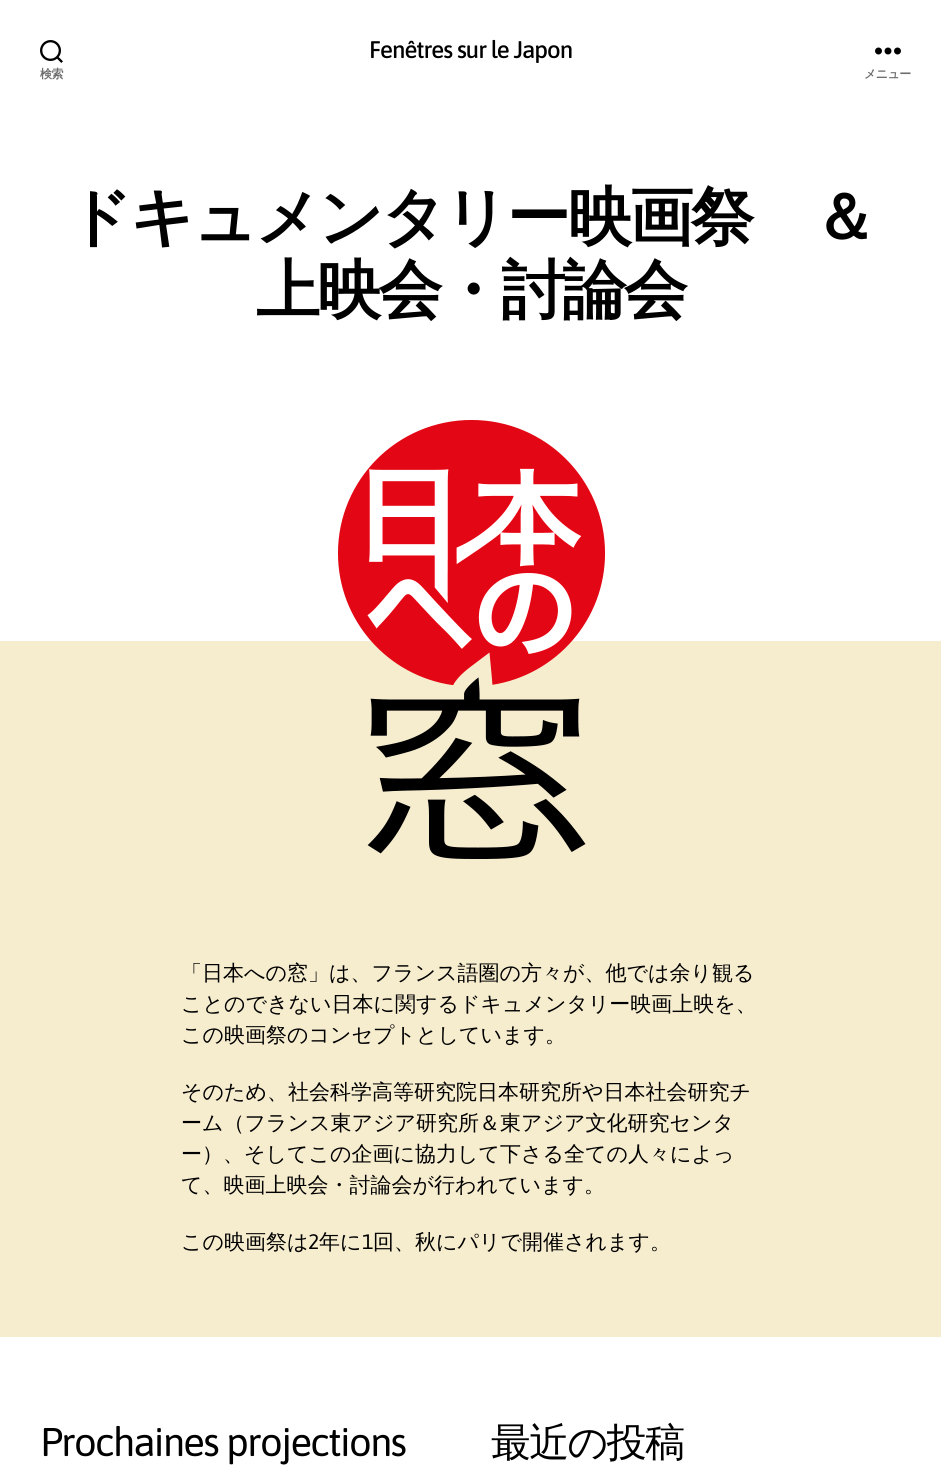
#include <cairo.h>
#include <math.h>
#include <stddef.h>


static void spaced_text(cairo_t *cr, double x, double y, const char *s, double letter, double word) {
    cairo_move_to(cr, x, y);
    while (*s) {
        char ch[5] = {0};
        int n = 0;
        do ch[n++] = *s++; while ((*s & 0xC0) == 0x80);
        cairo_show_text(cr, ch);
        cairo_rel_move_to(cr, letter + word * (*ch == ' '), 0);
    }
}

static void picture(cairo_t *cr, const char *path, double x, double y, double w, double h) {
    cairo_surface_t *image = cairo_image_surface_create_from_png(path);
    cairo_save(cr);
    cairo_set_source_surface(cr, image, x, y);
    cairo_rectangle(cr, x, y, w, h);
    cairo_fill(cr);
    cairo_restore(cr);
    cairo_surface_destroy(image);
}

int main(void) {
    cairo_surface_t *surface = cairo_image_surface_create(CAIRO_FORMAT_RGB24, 941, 1476);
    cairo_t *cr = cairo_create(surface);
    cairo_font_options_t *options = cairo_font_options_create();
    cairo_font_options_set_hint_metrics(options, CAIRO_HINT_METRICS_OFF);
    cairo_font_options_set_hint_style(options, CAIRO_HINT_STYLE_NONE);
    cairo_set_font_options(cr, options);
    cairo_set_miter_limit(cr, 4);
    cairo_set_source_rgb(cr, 0.961, 0.925, 0.808);
    cairo_paint(cr);
    cairo_set_source_rgb(cr, 1, 1, 1);
    cairo_rectangle(cr, 0, 0, 941, 641);
    cairo_fill(cr);
    cairo_select_font_face(cr, "Asap Medium", CAIRO_FONT_SLANT_NORMAL, CAIRO_FONT_WEIGHT_NORMAL);
    cairo_set_font_size(cr, 24);
    cairo_set_source_rgb(cr, 0, 0, 0);
    spaced_text(cr, 369, 58, "Fenêtres sur le Japon", -1, 0);
    picture(cr, "img1.png", 40, 40, 23, 23);
    cairo_select_font_face(cr, "WenQuanYi Zen Hei", CAIRO_FONT_SLANT_NORMAL, CAIRO_FONT_WEIGHT_BOLD);
    cairo_set_font_size(cr, 12);
    cairo_set_source_rgb(cr, 0.427, 0.427, 0.427);
    spaced_text(cr, 40, 78, "検索", -0.5, 0);
    picture(cr, "img2.png", 875, 47, 26, 8);
    spaced_text(cr, 864, 78, "メニュー", -0.5, 0);
    cairo_set_font_size(cr, 64);
    cairo_set_source_rgb(cr, 0, 0, 0);
    spaced_text(cr, 67, 239, "ドキュメンタリー映画祭　＆", -2.7, 0);
    spaced_text(cr, 256, 312, "上映会・討論会", -2.7, 0);
    picture(cr, "img3.png", 338, 420, 267, 439);
    cairo_select_font_face(cr, "WenQuanYi Zen Hei Medium", CAIRO_FONT_SLANT_NORMAL, CAIRO_FONT_WEIGHT_NORMAL);
    cairo_set_font_size(cr, 21);
    cairo_move_to(cr, 181, 980);
    cairo_show_text(cr, "「日本への窓」は、フランス語圏の方々が、他では余り観る");
    cairo_move_to(cr, 181, 1011);
    cairo_show_text(cr, "ことのできない日本に関するドキュメンタリー映画上映を、");
    cairo_move_to(cr, 181, 1042);
    cairo_show_text(cr, "この映画祭のコンセプトとしています。");
    cairo_move_to(cr, 181, 1099);
    cairo_show_text(cr, "そのため、社会科学高等研究院日本研究所や日本社会研究チ");
    cairo_move_to(cr, 181, 1130);
    cairo_show_text(cr, "ーム（フランス東アジア研究所＆東アジア文化研究センタ");
    cairo_move_to(cr, 181, 1161);
    cairo_show_text(cr, "ー）、そしてこの企画に協力して下さる全ての人々によっ");
    cairo_move_to(cr, 181, 1192);
    cairo_show_text(cr, "て、映画上映会・討論会が行われています。");
    cairo_move_to(cr, 181, 1249);
    cairo_show_text(cr, "この映画祭は");
    cairo_select_font_face(cr, "Asap", CAIRO_FONT_SLANT_NORMAL, CAIRO_FONT_WEIGHT_NORMAL);
    cairo_move_to(cr, 308, 1249);
    cairo_show_text(cr, "2");
    cairo_select_font_face(cr, "WenQuanYi Zen Hei Medium", CAIRO_FONT_SLANT_NORMAL, CAIRO_FONT_WEIGHT_NORMAL);
    cairo_move_to(cr, 319, 1249);
    cairo_show_text(cr, "年に");
    cairo_select_font_face(cr, "Asap", CAIRO_FONT_SLANT_NORMAL, CAIRO_FONT_WEIGHT_NORMAL);
    cairo_move_to(cr, 362, 1249);
    cairo_show_text(cr, "1");
    cairo_select_font_face(cr, "WenQuanYi Zen Hei Medium", CAIRO_FONT_SLANT_NORMAL, CAIRO_FONT_WEIGHT_NORMAL);
    cairo_move_to(cr, 373, 1249);
    cairo_show_text(cr, "回、秋にパリで開催されます。");
    cairo_set_source_rgb(cr, 1, 1, 1);
    cairo_rectangle(cr, 0, 1337, 941, 139);
    cairo_fill(cr);
    cairo_select_font_face(cr, "Asap", CAIRO_FONT_SLANT_NORMAL, CAIRO_FONT_WEIGHT_NORMAL);
    cairo_set_font_size(cr, 40);
    cairo_set_source_rgb(cr, 0, 0, 0);
    spaced_text(cr, 40, 1456, "Prochaines projections", -1.7, 0);
    cairo_select_font_face(cr, "WenQuanYi Zen Hei Medium", CAIRO_FONT_SLANT_NORMAL, CAIRO_FONT_WEIGHT_NORMAL);
    spaced_text(cr, 491, 1456, "最近の投稿", -1.7, 0);
    cairo_surface_write_to_png(surface, "page.png");
    cairo_font_options_destroy(options);
    cairo_destroy(cr);
    cairo_surface_destroy(surface);
    return 0;
}
